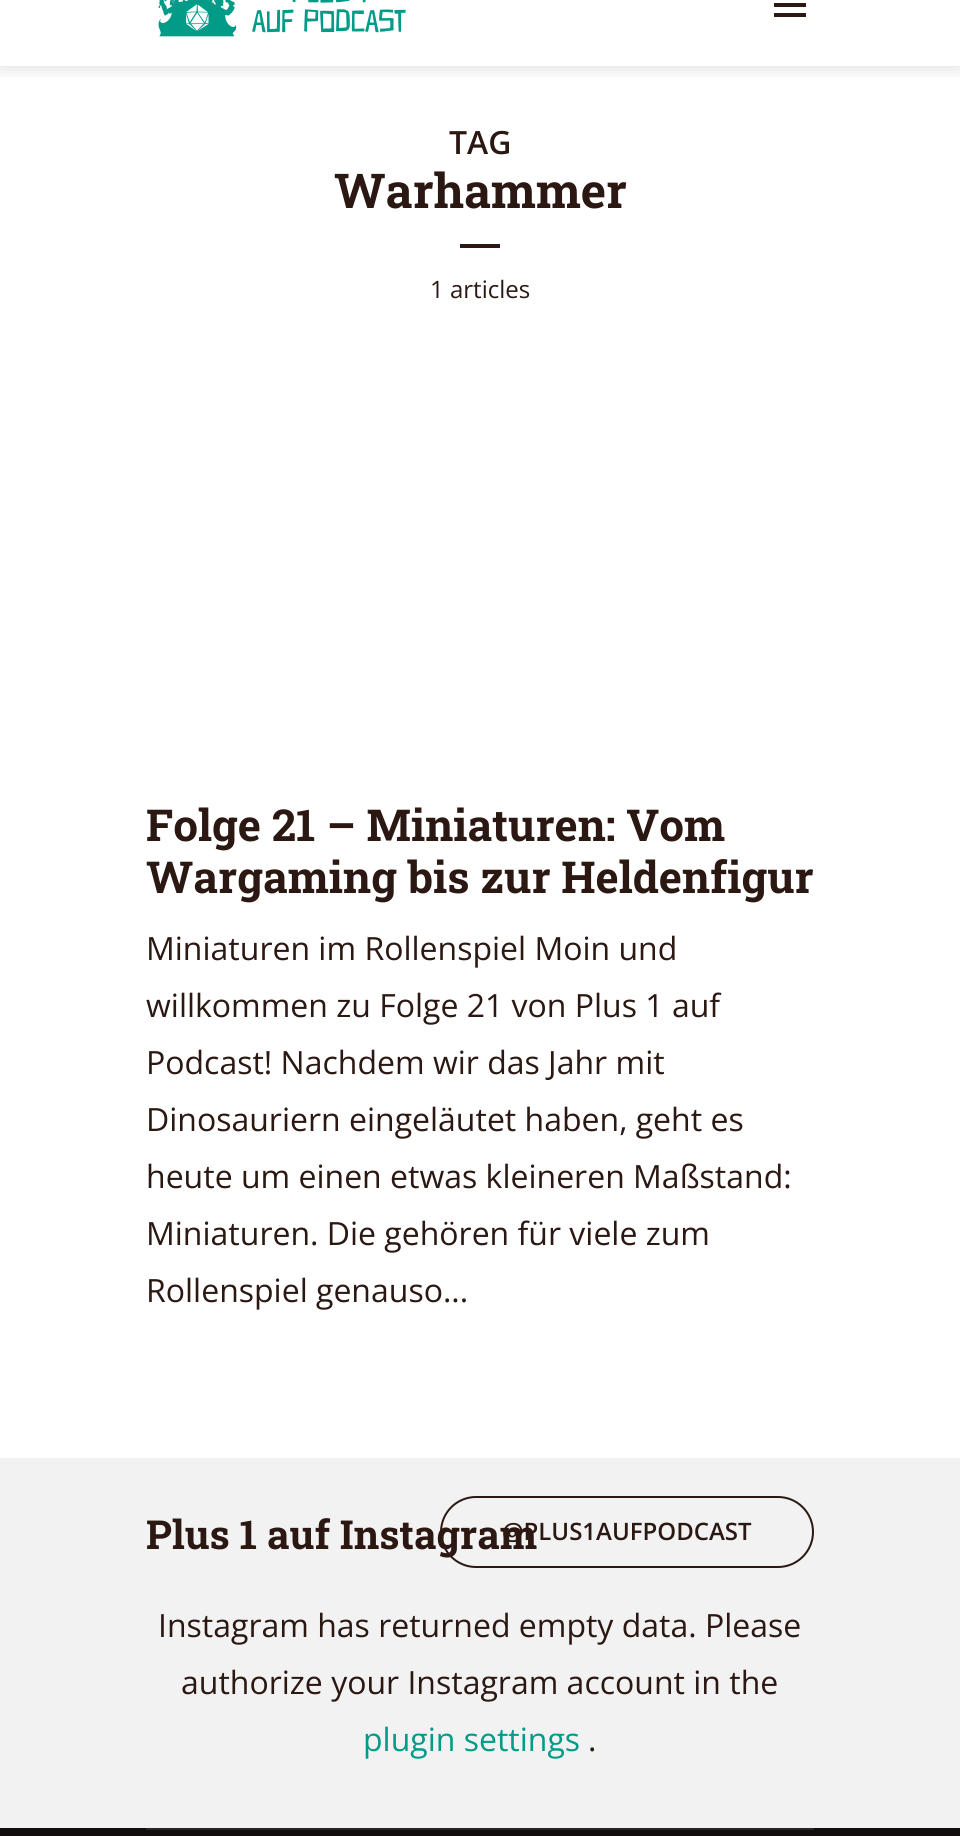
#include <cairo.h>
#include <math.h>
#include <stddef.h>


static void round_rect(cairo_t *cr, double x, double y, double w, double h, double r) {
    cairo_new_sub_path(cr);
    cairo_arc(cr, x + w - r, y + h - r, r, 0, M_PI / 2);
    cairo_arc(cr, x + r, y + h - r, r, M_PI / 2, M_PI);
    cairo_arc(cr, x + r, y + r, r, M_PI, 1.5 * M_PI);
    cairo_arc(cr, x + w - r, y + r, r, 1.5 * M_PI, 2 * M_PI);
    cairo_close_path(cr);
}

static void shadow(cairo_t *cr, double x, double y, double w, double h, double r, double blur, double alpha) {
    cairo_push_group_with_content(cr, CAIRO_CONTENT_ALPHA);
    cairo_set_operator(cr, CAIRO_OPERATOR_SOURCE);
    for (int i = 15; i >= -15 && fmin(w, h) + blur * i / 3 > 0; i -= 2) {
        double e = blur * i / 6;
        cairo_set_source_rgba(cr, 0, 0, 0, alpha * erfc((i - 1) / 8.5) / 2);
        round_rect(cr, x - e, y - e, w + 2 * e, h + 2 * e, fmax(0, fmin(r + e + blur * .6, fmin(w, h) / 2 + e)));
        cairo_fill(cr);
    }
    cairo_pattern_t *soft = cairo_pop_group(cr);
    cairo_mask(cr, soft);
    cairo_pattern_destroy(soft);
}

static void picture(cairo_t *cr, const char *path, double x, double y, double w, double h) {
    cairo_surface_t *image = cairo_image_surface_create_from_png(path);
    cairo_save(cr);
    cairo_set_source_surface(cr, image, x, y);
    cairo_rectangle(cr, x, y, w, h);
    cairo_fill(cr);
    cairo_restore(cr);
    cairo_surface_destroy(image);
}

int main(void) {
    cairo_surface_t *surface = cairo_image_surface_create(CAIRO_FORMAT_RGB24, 960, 1836);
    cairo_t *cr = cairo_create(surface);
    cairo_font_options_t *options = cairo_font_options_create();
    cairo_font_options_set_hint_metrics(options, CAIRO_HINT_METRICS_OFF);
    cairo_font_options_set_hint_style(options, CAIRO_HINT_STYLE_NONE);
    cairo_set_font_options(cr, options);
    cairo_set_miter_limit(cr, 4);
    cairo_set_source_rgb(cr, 1, 1, 1);
    cairo_paint(cr);
    cairo_save(cr);
    cairo_rectangle(cr, 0, 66, 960, 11);
    cairo_clip(cr);
    cairo_set_source_rgb(cr, 0, 0, 0);
    shadow(cr, 0, -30, 960, 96, 0, 10, 0.15);
    cairo_restore(cr);
    picture(cr, "img1.png", 158, 0, 248, 37);
    picture(cr, "img2.png", 774, 3, 32, 14);
    cairo_select_font_face(cr, "Open Sans SemiBold", CAIRO_FONT_SLANT_NORMAL, CAIRO_FONT_WEIGHT_NORMAL);
    cairo_set_font_size(cr, 32);
    cairo_set_source_rgb(cr, 0.169, 0.094, 0.075);
    cairo_move_to(cr, 449, 154);
    cairo_show_text(cr, "TAG");
    cairo_select_font_face(cr, "Roboto Slab", CAIRO_FONT_SLANT_NORMAL, CAIRO_FONT_WEIGHT_BOLD);
    cairo_set_font_size(cr, 48);
    cairo_move_to(cr, 334, 208);
    cairo_show_text(cr, "Warhammer");
    cairo_rectangle(cr, 460, 244, 40, 4);
    cairo_fill(cr);
    cairo_select_font_face(cr, "Open Sans", CAIRO_FONT_SLANT_NORMAL, CAIRO_FONT_WEIGHT_NORMAL);
    cairo_set_font_size(cr, 24);
    cairo_move_to(cr, 430, 298);
    cairo_show_text(cr, "1 articles");
    cairo_select_font_face(cr, "Roboto Slab", CAIRO_FONT_SLANT_NORMAL, CAIRO_FONT_WEIGHT_BOLD);
    cairo_set_font_size(cr, 44);
    cairo_move_to(cr, 146, 841);
    cairo_show_text(cr, "Folge 21 – Miniaturen: Vom");
    cairo_move_to(cr, 146, 893);
    cairo_show_text(cr, "Wargaming bis zur Heldenfigur");
    cairo_select_font_face(cr, "Open Sans", CAIRO_FONT_SLANT_NORMAL, CAIRO_FONT_WEIGHT_NORMAL);
    cairo_set_font_size(cr, 32);
    cairo_move_to(cr, 146, 960);
    cairo_show_text(cr, "Miniaturen im Rollenspiel Moin und");
    cairo_move_to(cr, 146, 1017);
    cairo_show_text(cr, "willkommen zu Folge 21 von Plus 1 auf");
    cairo_move_to(cr, 146, 1074);
    cairo_show_text(cr, "Podcast! Nachdem wir das Jahr mit");
    cairo_move_to(cr, 146, 1131);
    cairo_show_text(cr, "Dinosauriern eingeläutet haben, geht es");
    cairo_move_to(cr, 146, 1188);
    cairo_show_text(cr, "heute um einen etwas kleineren Maßstand:");
    cairo_move_to(cr, 146, 1245);
    cairo_show_text(cr, "Miniaturen. Die gehören für viele zum");
    cairo_move_to(cr, 146, 1302);
    cairo_show_text(cr, "Rollenspiel genauso...");
    cairo_set_source_rgb(cr, 0.949, 0.949, 0.949);
    cairo_rectangle(cr, 0, 1458, 960, 370);
    cairo_fill(cr);
    cairo_select_font_face(cr, "Roboto Slab", CAIRO_FONT_SLANT_NORMAL, CAIRO_FONT_WEIGHT_BOLD);
    cairo_set_font_size(cr, 40);
    cairo_set_source_rgb(cr, 0.169, 0.094, 0.075);
    cairo_move_to(cr, 146, 1549);
    cairo_show_text(cr, "Plus 1 auf Instagram");
    round_rect(cr, 441, 1497, 372, 70, 35);
    cairo_stroke(cr);
    cairo_select_font_face(cr, "Open Sans SemiBold", CAIRO_FONT_SLANT_NORMAL, CAIRO_FONT_WEIGHT_NORMAL);
    cairo_set_font_size(cr, 24);
    cairo_move_to(cr, 502, 1540);
    cairo_show_text(cr, "@PLUS1AUFPODCAST");
    cairo_select_font_face(cr, "Open Sans", CAIRO_FONT_SLANT_NORMAL, CAIRO_FONT_WEIGHT_NORMAL);
    cairo_set_font_size(cr, 32);
    cairo_move_to(cr, 158, 1637);
    cairo_show_text(cr, "Instagram has returned empty data. Please");
    cairo_move_to(cr, 181, 1694);
    cairo_show_text(cr, "authorize your Instagram account in the");
    cairo_set_source_rgb(cr, 0.008, 0.608, 0.533);
    cairo_move_to(cr, 363, 1751);
    cairo_show_text(cr, "plugin settings");
    cairo_set_source_rgb(cr, 0.169, 0.094, 0.075);
    cairo_move_to(cr, 588, 1751);
    cairo_show_text(cr, ".");
    cairo_set_source_rgb(cr, 0.071, 0.055, 0.051);
    cairo_rectangle(cr, 0, 1828, 960, 8);
    cairo_fill(cr);
    cairo_set_source_rgb(cr, 0.165, 0.149, 0.145);
    cairo_rectangle(cr, 146, 1828, 668, 2);
    cairo_fill(cr);
    cairo_surface_write_to_png(surface, "page.png");
    cairo_font_options_destroy(options);
    cairo_destroy(cr);
    cairo_surface_destroy(surface);
    return 0;
}
